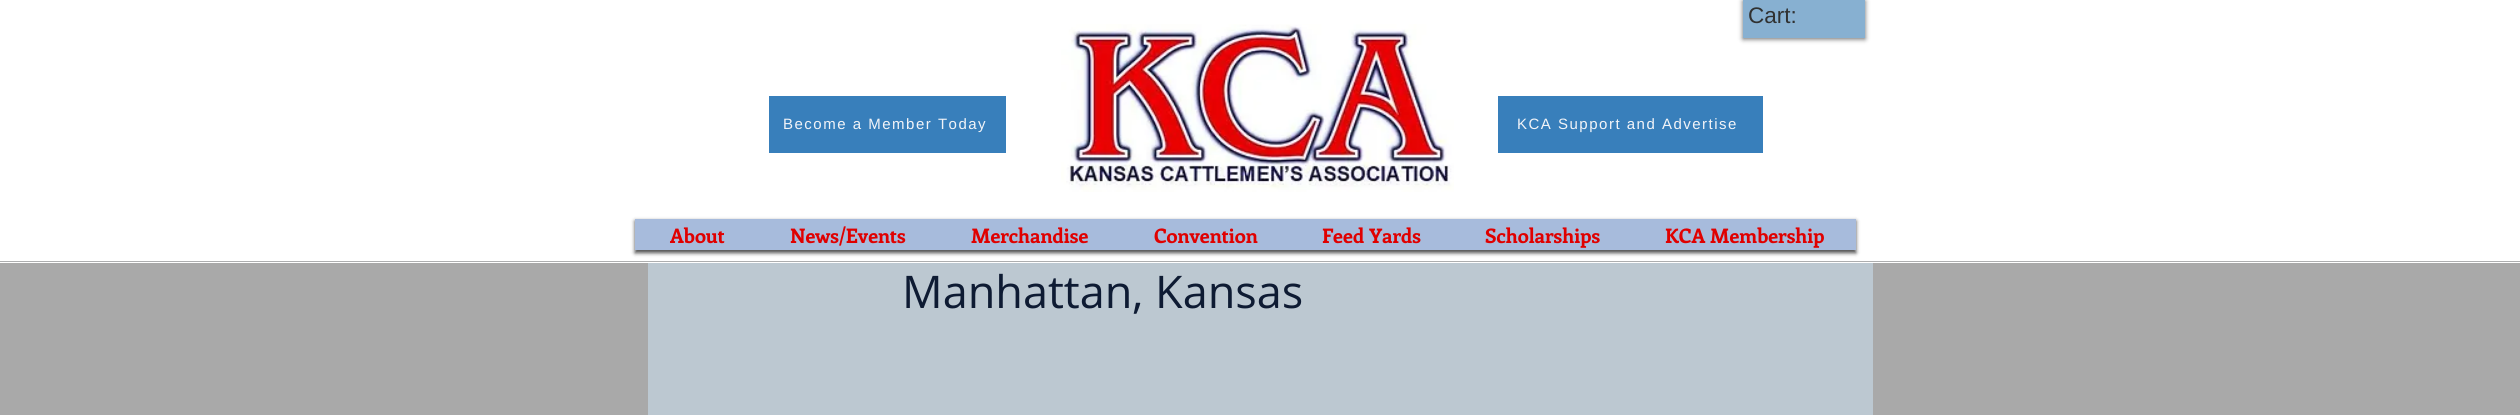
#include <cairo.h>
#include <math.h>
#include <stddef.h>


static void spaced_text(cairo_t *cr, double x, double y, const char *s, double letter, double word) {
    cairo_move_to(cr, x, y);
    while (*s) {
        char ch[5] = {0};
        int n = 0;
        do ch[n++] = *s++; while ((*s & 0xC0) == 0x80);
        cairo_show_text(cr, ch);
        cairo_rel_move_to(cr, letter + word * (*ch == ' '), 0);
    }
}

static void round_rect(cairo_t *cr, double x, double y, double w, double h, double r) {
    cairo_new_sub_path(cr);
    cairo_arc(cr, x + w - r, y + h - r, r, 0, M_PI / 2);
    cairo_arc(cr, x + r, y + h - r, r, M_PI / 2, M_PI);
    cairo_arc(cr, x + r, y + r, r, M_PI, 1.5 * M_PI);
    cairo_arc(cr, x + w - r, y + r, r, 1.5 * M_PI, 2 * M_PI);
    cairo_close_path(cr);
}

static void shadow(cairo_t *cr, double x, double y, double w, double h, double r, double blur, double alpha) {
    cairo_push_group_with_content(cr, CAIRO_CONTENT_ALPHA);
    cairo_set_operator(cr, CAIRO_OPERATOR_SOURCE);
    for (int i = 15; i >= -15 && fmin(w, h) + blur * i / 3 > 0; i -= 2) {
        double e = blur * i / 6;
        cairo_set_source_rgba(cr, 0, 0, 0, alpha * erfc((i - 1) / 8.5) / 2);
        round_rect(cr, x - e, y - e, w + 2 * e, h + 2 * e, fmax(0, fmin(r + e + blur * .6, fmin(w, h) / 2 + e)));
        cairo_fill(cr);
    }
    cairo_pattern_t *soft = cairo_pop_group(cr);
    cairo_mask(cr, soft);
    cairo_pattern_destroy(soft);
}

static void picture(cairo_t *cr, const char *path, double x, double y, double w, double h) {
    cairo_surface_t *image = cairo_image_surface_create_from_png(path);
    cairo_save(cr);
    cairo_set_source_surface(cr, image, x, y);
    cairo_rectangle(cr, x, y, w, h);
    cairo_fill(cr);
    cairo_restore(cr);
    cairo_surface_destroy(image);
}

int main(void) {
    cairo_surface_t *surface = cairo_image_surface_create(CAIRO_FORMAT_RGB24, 2520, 415);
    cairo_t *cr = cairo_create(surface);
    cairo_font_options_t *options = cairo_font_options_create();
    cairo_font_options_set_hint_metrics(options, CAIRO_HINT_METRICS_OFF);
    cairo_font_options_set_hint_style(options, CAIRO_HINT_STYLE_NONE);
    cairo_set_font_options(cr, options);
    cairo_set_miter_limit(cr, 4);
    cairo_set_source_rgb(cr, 0.663, 0.663, 0.663);
    cairo_paint(cr);
    cairo_set_source_rgb(cr, 1, 1, 1);
    cairo_rectangle(cr, 0, 0, 2520, 263);
    cairo_fill(cr);
    cairo_set_source_rgb(cr, 0.678, 0.682, 0.686);
    cairo_rectangle(cr, 0, 261, 2520, 1);
    cairo_fill(cr);
    cairo_set_source_rgb(cr, 0, 0, 0);
    shadow(cr, 1743, 1, 122, 38, 0, 2.5, 0.6);
    cairo_set_source_rgb(cr, 0.529, 0.69, 0.82);
    cairo_rectangle(cr, 1743, 0, 122, 38);
    cairo_fill(cr);
    cairo_select_font_face(cr, "Liberation Sans", CAIRO_FONT_SLANT_NORMAL, CAIRO_FONT_WEIGHT_NORMAL);
    cairo_set_font_size(cr, 22.5);
    cairo_set_source_rgb(cr, 0.188, 0.192, 0.192);
    cairo_move_to(cr, 1748, 23);
    cairo_show_text(cr, "Cart:");
    cairo_set_source_rgb(cr, 0.22, 0.498, 0.733);
    cairo_rectangle(cr, 769, 96, 237, 57);
    cairo_fill(cr);
    cairo_set_font_size(cr, 15);
    cairo_set_source_rgb(cr, 0.949, 0.957, 0.969);
    spaced_text(cr, 783, 129, "Become a Member Today", 1.5, 0);
    picture(cr, "img1.png", 1061, 24, 393, 168);
    cairo_set_source_rgb(cr, 0.22, 0.498, 0.733);
    cairo_rectangle(cr, 1498, 96, 265, 57);
    cairo_fill(cr);
    cairo_set_source_rgb(cr, 0.949, 0.957, 0.969);
    spaced_text(cr, 1517, 129, "KCA Support and Advertise", 1.5, 0);
    cairo_set_source_rgb(cr, 0, 0, 0);
    shadow(cr, 635, 221, 1221, 32, 0, 2, 0.7);
    cairo_set_source_rgb(cr, 0.655, 0.733, 0.863);
    cairo_rectangle(cr, 635, 219, 1221, 31);
    cairo_fill(cr);
    cairo_select_font_face(cr, "Enriqueta", CAIRO_FONT_SLANT_NORMAL, CAIRO_FONT_WEIGHT_BOLD);
    cairo_set_font_size(cr, 20);
    cairo_set_source_rgb(cr, 0.878, 0, 0);
    cairo_move_to(cr, 670, 243);
    cairo_show_text(cr, "About");
    cairo_move_to(cr, 790, 243);
    cairo_show_text(cr, "News/Events");
    cairo_move_to(cr, 971, 243);
    cairo_show_text(cr, "Merchandise");
    cairo_move_to(cr, 1154, 243);
    cairo_show_text(cr, "Convention");
    cairo_move_to(cr, 1322, 243);
    cairo_show_text(cr, "Feed Yards");
    cairo_move_to(cr, 1485, 243);
    cairo_show_text(cr, "Scholarships");
    cairo_move_to(cr, 1665, 243);
    cairo_show_text(cr, "KCA Membership");
    cairo_set_source_rgb(cr, 0.737, 0.784, 0.82);
    cairo_rectangle(cr, 648, 263, 1225, 152);
    cairo_fill(cr);
    cairo_select_font_face(cr, "Open Sans", CAIRO_FONT_SLANT_NORMAL, CAIRO_FONT_WEIGHT_NORMAL);
    cairo_set_font_size(cr, 45);
    cairo_set_source_rgb(cr, 0.055, 0.106, 0.2);
    cairo_move_to(cr, 902, 308);
    cairo_show_text(cr, "Manhattan, Kansas");
    cairo_surface_write_to_png(surface, "page.png");
    cairo_font_options_destroy(options);
    cairo_destroy(cr);
    cairo_surface_destroy(surface);
    return 0;
}
